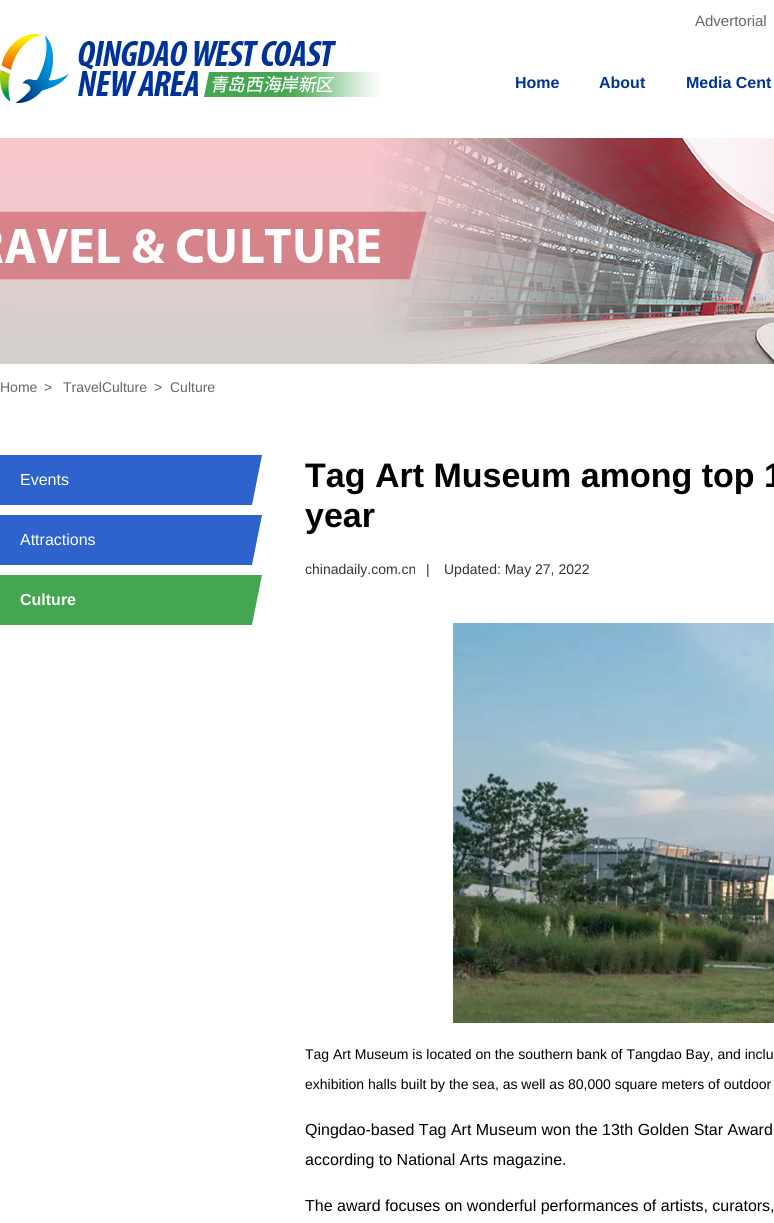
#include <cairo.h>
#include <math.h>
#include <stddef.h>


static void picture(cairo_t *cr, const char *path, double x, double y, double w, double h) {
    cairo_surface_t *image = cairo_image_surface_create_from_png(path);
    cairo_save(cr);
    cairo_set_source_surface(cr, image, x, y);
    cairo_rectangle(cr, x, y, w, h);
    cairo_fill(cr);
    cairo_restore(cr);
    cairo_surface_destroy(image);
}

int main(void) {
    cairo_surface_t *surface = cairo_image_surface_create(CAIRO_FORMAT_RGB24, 774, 1223);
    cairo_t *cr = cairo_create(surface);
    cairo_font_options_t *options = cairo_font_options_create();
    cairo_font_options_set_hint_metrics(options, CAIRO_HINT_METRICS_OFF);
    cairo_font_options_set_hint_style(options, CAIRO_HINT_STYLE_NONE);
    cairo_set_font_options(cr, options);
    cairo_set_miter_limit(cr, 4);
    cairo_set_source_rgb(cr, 1, 1, 1);
    cairo_paint(cr);
    cairo_select_font_face(cr, "Liberation Sans", CAIRO_FONT_SLANT_NORMAL, CAIRO_FONT_WEIGHT_NORMAL);
    cairo_set_font_size(cr, 15);
    cairo_set_source_rgb(cr, 0.4, 0.4, 0.4);
    cairo_move_to(cr, 695, 26);
    cairo_show_text(cr, "Advertorial");
    picture(cr, "img1.png", 0, 34, 380, 69);
    cairo_select_font_face(cr, "Liberation Sans", CAIRO_FONT_SLANT_NORMAL, CAIRO_FONT_WEIGHT_BOLD);
    cairo_set_font_size(cr, 16);
    cairo_set_source_rgb(cr, 0, 0.2, 0.6);
    cairo_move_to(cr, 515, 88);
    cairo_show_text(cr, "Home");
    cairo_move_to(cr, 599, 88);
    cairo_show_text(cr, "About");
    cairo_move_to(cr, 686, 88);
    cairo_show_text(cr, "Media Cent");
    picture(cr, "img2.png", 0, 138, 774, 226);
    cairo_select_font_face(cr, "Liberation Sans", CAIRO_FONT_SLANT_NORMAL, CAIRO_FONT_WEIGHT_NORMAL);
    cairo_set_font_size(cr, 14);
    cairo_set_source_rgb(cr, 0.4, 0.4, 0.4);
    cairo_move_to(cr, 0, 392);
    cairo_show_text(cr, "Home");
    cairo_move_to(cr, 44, 392);
    cairo_show_text(cr, ">");
    cairo_move_to(cr, 63, 392);
    cairo_show_text(cr, "TravelCulture");
    cairo_move_to(cr, 154, 392);
    cairo_show_text(cr, ">");
    cairo_move_to(cr, 170, 392);
    cairo_show_text(cr, "Culture");
    cairo_set_source_rgb(cr, 0.18, 0.388, 0.804);
    cairo_rectangle(cr, 0, 455, 252, 50);
    cairo_fill(cr);
    cairo_set_font_size(cr, 16);
    cairo_set_source_rgb(cr, 1, 1, 1);
    cairo_move_to(cr, 20, 485);
    cairo_show_text(cr, "Events");
    cairo_save(cr);
    cairo_rectangle(cr, 0, 455, 262, 50);
    cairo_clip(cr);
    cairo_set_source_rgb(cr, 0.18, 0.388, 0.804);
    cairo_new_path(cr);
    cairo_move_to(cr, 252, 505);
    cairo_line_to(cr, 252, 405);
    cairo_line_to(cr, 262, 405);
    cairo_line_to(cr, 262, 455);
    cairo_close_path(cr);
    cairo_fill(cr);
    cairo_restore(cr);
    cairo_set_source_rgb(cr, 0.18, 0.388, 0.804);
    cairo_rectangle(cr, 0, 515, 252, 50);
    cairo_fill(cr);
    cairo_set_source_rgb(cr, 1, 1, 1);
    cairo_move_to(cr, 20, 545);
    cairo_show_text(cr, "Attractions");
    cairo_save(cr);
    cairo_rectangle(cr, 0, 515, 262, 50);
    cairo_clip(cr);
    cairo_set_source_rgb(cr, 0.18, 0.388, 0.804);
    cairo_new_path(cr);
    cairo_move_to(cr, 252, 565);
    cairo_line_to(cr, 252, 465);
    cairo_line_to(cr, 262, 465);
    cairo_line_to(cr, 262, 515);
    cairo_close_path(cr);
    cairo_fill(cr);
    cairo_restore(cr);
    cairo_set_source_rgb(cr, 0.267, 0.651, 0.314);
    cairo_rectangle(cr, 0, 575, 252, 50);
    cairo_fill(cr);
    cairo_select_font_face(cr, "Liberation Sans", CAIRO_FONT_SLANT_NORMAL, CAIRO_FONT_WEIGHT_BOLD);
    cairo_set_source_rgb(cr, 1, 1, 1);
    cairo_move_to(cr, 20, 605);
    cairo_show_text(cr, "Culture");
    cairo_save(cr);
    cairo_rectangle(cr, 0, 575, 262, 50);
    cairo_clip(cr);
    cairo_set_source_rgb(cr, 0.267, 0.651, 0.314);
    cairo_new_path(cr);
    cairo_move_to(cr, 252, 625);
    cairo_line_to(cr, 252, 525);
    cairo_line_to(cr, 262, 525);
    cairo_line_to(cr, 262, 575);
    cairo_close_path(cr);
    cairo_fill(cr);
    cairo_restore(cr);
    cairo_set_font_size(cr, 34);
    cairo_set_source_rgb(cr, 0, 0, 0);
    cairo_move_to(cr, 305, 487);
    cairo_show_text(cr, "Tag Art Museum among top 1");
    cairo_move_to(cr, 305, 527);
    cairo_show_text(cr, "year");
    cairo_select_font_face(cr, "Liberation Sans", CAIRO_FONT_SLANT_NORMAL, CAIRO_FONT_WEIGHT_NORMAL);
    cairo_set_font_size(cr, 14);
    cairo_set_source_rgb(cr, 0.2, 0.2, 0.2);
    cairo_move_to(cr, 305, 574);
    cairo_show_text(cr, "chinadaily.com.cn");
    cairo_move_to(cr, 426, 574);
    cairo_show_text(cr, "|");
    cairo_move_to(cr, 444, 574);
    cairo_show_text(cr, "Updated: May 27, 2022");
    picture(cr, "img3.png", 453, 623, 321, 400);
    cairo_set_source_rgb(cr, 0, 0, 0);
    cairo_move_to(cr, 305, 1059);
    cairo_show_text(cr, "Tag Art Museum is located on the southern bank of Tangdao Bay, and inclu");
    cairo_move_to(cr, 305, 1089);
    cairo_show_text(cr, "exhibition halls built by the sea, as well as 80,000 square meters of outdoor");
    cairo_set_font_size(cr, 16);
    cairo_move_to(cr, 305, 1135);
    cairo_show_text(cr, "Qingdao-based Tag Art Museum won the 13th Golden Star Award");
    cairo_move_to(cr, 305, 1165);
    cairo_show_text(cr, "according to National Arts magazine.");
    cairo_move_to(cr, 305, 1211);
    cairo_show_text(cr, "The award focuses on wonderful performances of artists, curators,");
    cairo_surface_write_to_png(surface, "page.png");
    cairo_font_options_destroy(options);
    cairo_destroy(cr);
    cairo_surface_destroy(surface);
    return 0;
}
